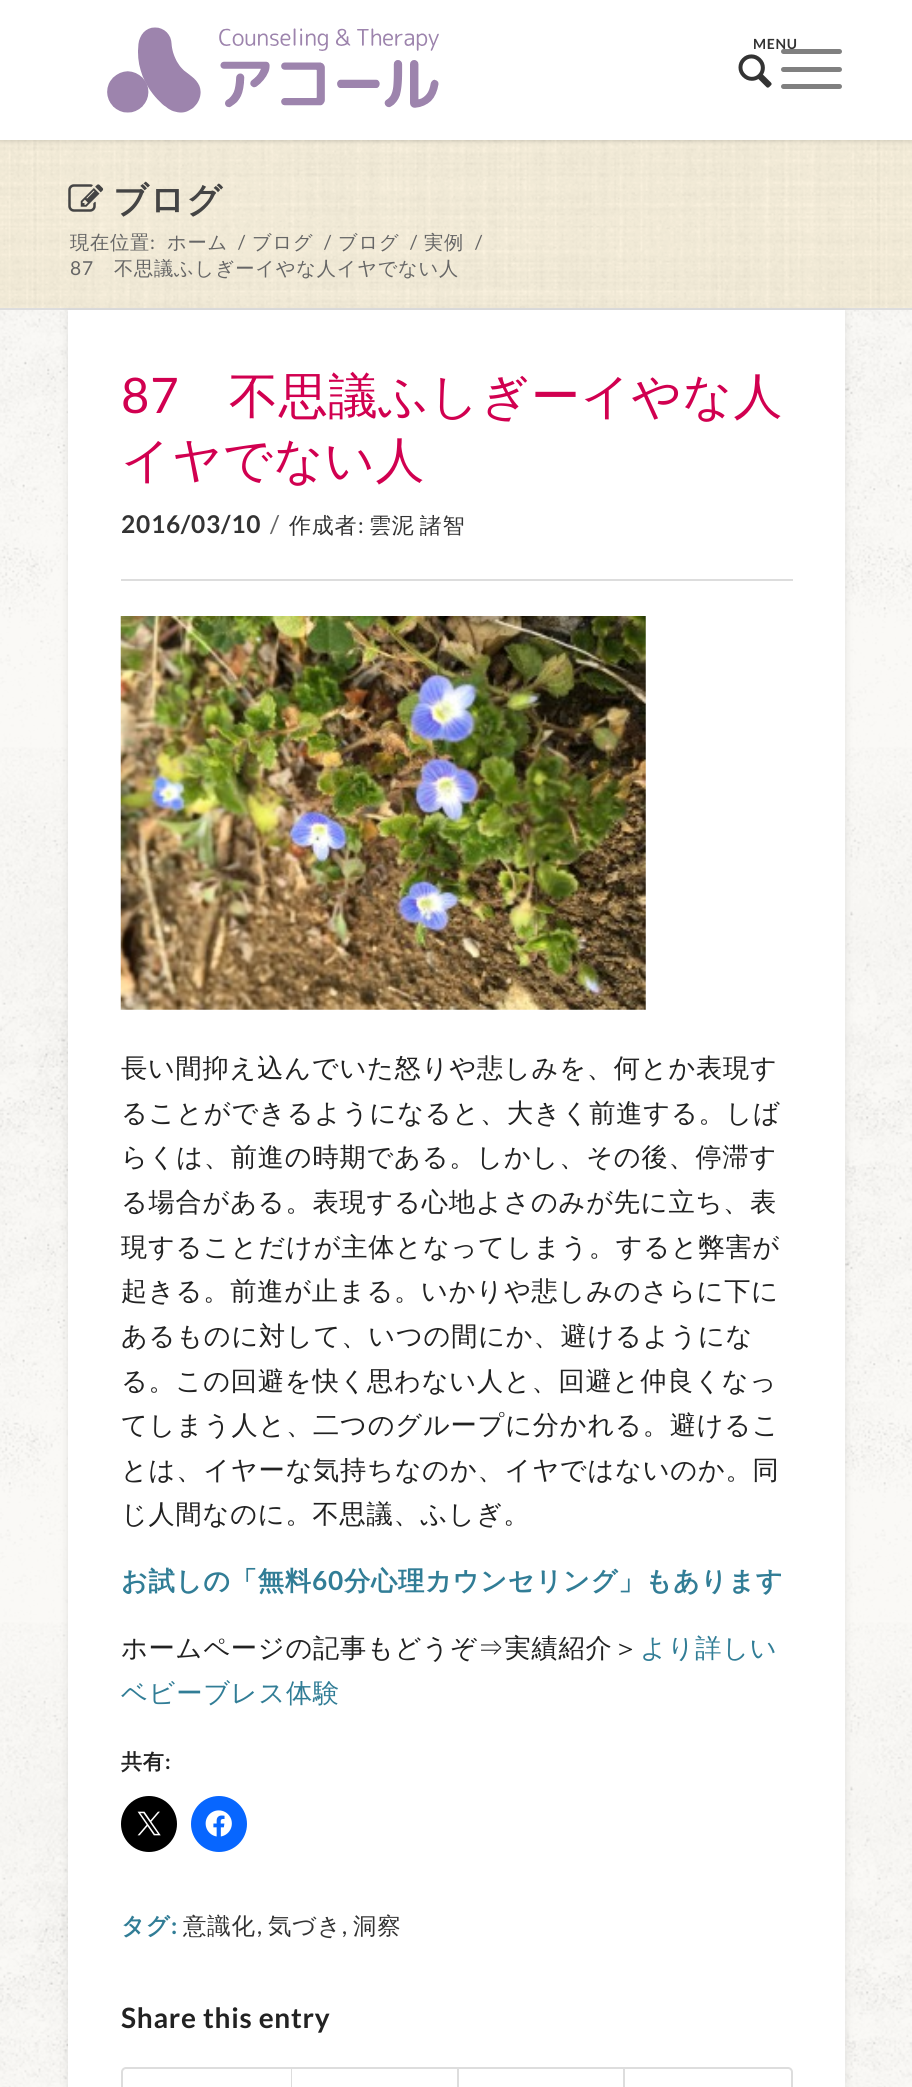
#include <cairo.h>
#include <math.h>
#include <stddef.h>


static void spaced_text(cairo_t *cr, double x, double y, const char *s, double letter, double word) {
    cairo_move_to(cr, x, y);
    while (*s) {
        char ch[5] = {0};
        int n = 0;
        do ch[n++] = *s++; while ((*s & 0xC0) == 0x80);
        cairo_show_text(cr, ch);
        cairo_rel_move_to(cr, letter + word * (*ch == ' '), 0);
    }
}

static void round_rect(cairo_t *cr, double x, double y, double w, double h, double r) {
    cairo_new_sub_path(cr);
    cairo_arc(cr, x + w - r, y + h - r, r, 0, M_PI / 2);
    cairo_arc(cr, x + r, y + h - r, r, M_PI / 2, M_PI);
    cairo_arc(cr, x + r, y + r, r, M_PI, 1.5 * M_PI);
    cairo_arc(cr, x + w - r, y + r, r, 1.5 * M_PI, 2 * M_PI);
    cairo_close_path(cr);
}

static void shadow(cairo_t *cr, double x, double y, double w, double h, double r, double blur, double alpha) {
    cairo_push_group_with_content(cr, CAIRO_CONTENT_ALPHA);
    cairo_set_operator(cr, CAIRO_OPERATOR_SOURCE);
    for (int i = 15; i >= -15 && fmin(w, h) + blur * i / 3 > 0; i -= 2) {
        double e = blur * i / 6;
        cairo_set_source_rgba(cr, 0, 0, 0, alpha * erfc((i - 1) / 8.5) / 2);
        round_rect(cr, x - e, y - e, w + 2 * e, h + 2 * e, fmax(0, fmin(r + e + blur * .6, fmin(w, h) / 2 + e)));
        cairo_fill(cr);
    }
    cairo_pattern_t *soft = cairo_pop_group(cr);
    cairo_mask(cr, soft);
    cairo_pattern_destroy(soft);
}

static void picture(cairo_t *cr, const char *path, double x, double y, double w, double h) {
    cairo_surface_t *image = cairo_image_surface_create_from_png(path);
    cairo_save(cr);
    cairo_set_source_surface(cr, image, x, y);
    cairo_rectangle(cr, x, y, w, h);
    cairo_fill(cr);
    cairo_restore(cr);
    cairo_surface_destroy(image);
}

int main(void) {
    cairo_surface_t *surface = cairo_image_surface_create(CAIRO_FORMAT_RGB24, 912, 2087);
    cairo_t *cr = cairo_create(surface);
    cairo_font_options_t *options = cairo_font_options_create();
    cairo_font_options_set_hint_metrics(options, CAIRO_HINT_METRICS_OFF);
    cairo_font_options_set_hint_style(options, CAIRO_HINT_STYLE_NONE);
    cairo_set_font_options(cr, options);
    cairo_set_miter_limit(cr, 4);
    cairo_set_source_rgb(cr, 0.988, 0.957, 0.878);
    cairo_paint(cr);
    picture(cr, "img3.png", 0, 140, 912, 168);
    cairo_set_source_rgb(cr, 0, 0, 0);
    shadow(cr, -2, -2, 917, 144, 0, 2, 0.1);
    cairo_set_source_rgb(cr, 1, 1, 1);
    cairo_rectangle(cr, 0, 0, 912, 140);
    cairo_fill(cr);
    picture(cr, "img1.png", 107, 27, 332, 86);
    cairo_set_source_rgb(cr, 0.502, 0.502, 0.502);
    round_rect(cr, 781, 49, 61, 5, 2.5);
    cairo_fill(cr);
    cairo_select_font_face(cr, "Lato", CAIRO_FONT_SLANT_NORMAL, CAIRO_FONT_WEIGHT_BOLD);
    cairo_set_font_size(cr, 14);
    cairo_set_source_rgb(cr, 0.2, 0.2, 0.2);
    spaced_text(cr, 753, 49, "MENU", 0.75, 0);
    picture(cr, "img2.png", 738, 54, 34, 34);
    cairo_set_source_rgb(cr, 0.502, 0.502, 0.502);
    round_rect(cr, 781, 67, 61, 5, 2.5);
    cairo_fill(cr);
    round_rect(cr, 781, 84, 61, 5, 2.5);
    cairo_fill(cr);
    picture(cr, "img4.png", 68, 184, 36, 28);
    cairo_select_font_face(cr, "WenQuanYi Zen Hei", CAIRO_FONT_SLANT_NORMAL, CAIRO_FONT_WEIGHT_BOLD);
    cairo_set_font_size(cr, 35);
    cairo_set_source_rgb(cr, 0.267, 0.267, 0.267);
    spaced_text(cr, 113, 212, "ブログ", 0.75, 0);
    cairo_select_font_face(cr, "WenQuanYi Zen Hei Medium", CAIRO_FONT_SLANT_NORMAL, CAIRO_FONT_WEIGHT_NORMAL);
    cairo_set_font_size(cr, 19.25);
    cairo_set_source_rgb(cr, 0.4, 0.4, 0.4);
    spaced_text(cr, 70, 249, "現在位置", 0.75, 0);
    cairo_select_font_face(cr, "Lato", CAIRO_FONT_SLANT_NORMAL, CAIRO_FONT_WEIGHT_NORMAL);
    spaced_text(cr, 150, 249, ":", 0.75, 0);
    cairo_select_font_face(cr, "WenQuanYi Zen Hei Medium", CAIRO_FONT_SLANT_NORMAL, CAIRO_FONT_WEIGHT_NORMAL);
    spaced_text(cr, 167, 249, "ホーム", 0.75, 0);
    cairo_select_font_face(cr, "Lato", CAIRO_FONT_SLANT_NORMAL, CAIRO_FONT_WEIGHT_NORMAL);
    spaced_text(cr, 238, 249, "/", 0.75, 0);
    cairo_select_font_face(cr, "WenQuanYi Zen Hei Medium", CAIRO_FONT_SLANT_NORMAL, CAIRO_FONT_WEIGHT_NORMAL);
    spaced_text(cr, 252, 249, "ブログ", 0.75, 0);
    cairo_select_font_face(cr, "Lato", CAIRO_FONT_SLANT_NORMAL, CAIRO_FONT_WEIGHT_NORMAL);
    spaced_text(cr, 324, 249, "/", 0.75, 0);
    cairo_select_font_face(cr, "WenQuanYi Zen Hei Medium", CAIRO_FONT_SLANT_NORMAL, CAIRO_FONT_WEIGHT_NORMAL);
    spaced_text(cr, 338, 249, "ブログ", 0.75, 0);
    cairo_select_font_face(cr, "Lato", CAIRO_FONT_SLANT_NORMAL, CAIRO_FONT_WEIGHT_NORMAL);
    spaced_text(cr, 410, 249, "/", 0.75, 0);
    cairo_select_font_face(cr, "WenQuanYi Zen Hei Medium", CAIRO_FONT_SLANT_NORMAL, CAIRO_FONT_WEIGHT_NORMAL);
    spaced_text(cr, 424, 249, "実例", 0.75, 0);
    cairo_select_font_face(cr, "Lato", CAIRO_FONT_SLANT_NORMAL, CAIRO_FONT_WEIGHT_NORMAL);
    spaced_text(cr, 475, 249, "/", 0.75, 0);
    spaced_text(cr, 70, 275, "87", 0.75, 0);
    cairo_select_font_face(cr, "WenQuanYi Zen Hei Medium", CAIRO_FONT_SLANT_NORMAL, CAIRO_FONT_WEIGHT_NORMAL);
    spaced_text(cr, 114, 275, "不思議ふしぎーイやな人イヤでない人", 0.75, 0);
    cairo_set_source_rgb(cr, 0.98, 0.976, 0.961);
    cairo_rectangle(cr, 0, 310, 912, 1777);
    cairo_fill(cr);
    picture(cr, "img5.png", 0, 310, 912, 1777);
    cairo_set_source_rgb(cr, 0.867, 0.867, 0.867);
    cairo_rectangle(cr, 0, 308, 912, 2);
    cairo_fill(cr);
    cairo_set_source_rgb(cr, 0, 0, 0);
    shadow(cr, 68, 312, 777, 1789, 0, 4.5, 0.1);
    cairo_set_source_rgb(cr, 1, 1, 1);
    cairo_rectangle(cr, 68, 310, 777, 1777);
    cairo_fill(cr);
    cairo_set_source_rgb(cr, 0.867, 0.867, 0.867);
    cairo_rectangle(cr, 121, 579, 672, 2);
    cairo_fill(cr);
    cairo_select_font_face(cr, "Lato", CAIRO_FONT_SLANT_NORMAL, CAIRO_FONT_WEIGHT_NORMAL);
    cairo_set_font_size(cr, 49);
    cairo_set_source_rgb(cr, 0.82, 0, 0.314);
    spaced_text(cr, 121, 413, "87", 0.75, 0);
    cairo_select_font_face(cr, "WenQuanYi Zen Hei Medium", CAIRO_FONT_SLANT_NORMAL, CAIRO_FONT_WEIGHT_NORMAL);
    spaced_text(cr, 229, 413, "不思議ふしぎーイやな人", 0.75, 0);
    spaced_text(cr, 121, 477, "イヤでない人", 0.75, 0);
    cairo_select_font_face(cr, "Lato", CAIRO_FONT_SLANT_NORMAL, CAIRO_FONT_WEIGHT_BOLD);
    cairo_set_font_size(cr, 24.5);
    cairo_set_source_rgb(cr, 0.2, 0.2, 0.2);
    spaced_text(cr, 121, 533, "2016/03/10", 0.75, 0);
    cairo_select_font_face(cr, "Lato", CAIRO_FONT_SLANT_NORMAL, CAIRO_FONT_WEIGHT_NORMAL);
    cairo_set_source_rgb(cr, 0.4, 0.4, 0.4);
    spaced_text(cr, 270, 533, "/", 0.75, 0);
    cairo_select_font_face(cr, "WenQuanYi Zen Hei Medium", CAIRO_FONT_SLANT_NORMAL, CAIRO_FONT_WEIGHT_NORMAL);
    cairo_set_font_size(cr, 22);
    cairo_set_source_rgb(cr, 0.2, 0.2, 0.2);
    spaced_text(cr, 289, 533, "作成者", 0.75, 0);
    cairo_select_font_face(cr, "Lato", CAIRO_FONT_SLANT_NORMAL, CAIRO_FONT_WEIGHT_NORMAL);
    spaced_text(cr, 358, 533, ":", 0.75, 0);
    cairo_select_font_face(cr, "WenQuanYi Zen Hei Medium", CAIRO_FONT_SLANT_NORMAL, CAIRO_FONT_WEIGHT_NORMAL);
    spaced_text(cr, 369, 533, "雲泥 諸智", 0.75, -2);
    picture(cr, "img6.png", 120, 616, 526, 394);
    cairo_set_font_size(cr, 26.25);
    cairo_set_source_rgb(cr, 0.133, 0.133, 0.133);
    spaced_text(cr, 121, 1077, "長い間抑え込んでいた怒りや悲しみを、何とか表現す", 0.75, 0);
    spaced_text(cr, 121, 1122, "ることができるようになると、大きく前進する。しば", 0.75, 0);
    spaced_text(cr, 121, 1166, "らくは、前進の時期である。しかし、その後、停滞す", 0.75, 0);
    spaced_text(cr, 121, 1211, "る場合がある。表現する心地よさのみが先に立ち、表", 0.75, 0);
    spaced_text(cr, 121, 1256, "現することだけが主体となってしまう。すると弊害が", 0.75, 0);
    spaced_text(cr, 121, 1300, "起きる。前進が止まる。いかりや悲しみのさらに下に", 0.75, 0);
    spaced_text(cr, 121, 1345, "あるものに対して、いつの間にか、避けるようにな", 0.75, 0);
    spaced_text(cr, 121, 1390, "る。この回避を快く思わない人と、回避と仲良くなっ", 0.75, 0);
    spaced_text(cr, 121, 1434, "てしまう人と、二つのグループに分かれる。避けるこ", 0.75, 0);
    spaced_text(cr, 121, 1479, "とは、イヤーな気持ちなのか、イヤではないのか。同", 0.75, 0);
    spaced_text(cr, 121, 1523, "じ人間なのに。不思議、ふしぎ。", 0.75, 0);
    cairo_select_font_face(cr, "WenQuanYi Zen Hei", CAIRO_FONT_SLANT_NORMAL, CAIRO_FONT_WEIGHT_BOLD);
    cairo_set_source_rgb(cr, 0.192, 0.49, 0.588);
    spaced_text(cr, 121, 1590, "お試しの「無料", 0.75, 0);
    cairo_select_font_face(cr, "Lato", CAIRO_FONT_SLANT_NORMAL, CAIRO_FONT_WEIGHT_BOLD);
    spaced_text(cr, 312, 1590, "60", 0.75, 0);
    cairo_select_font_face(cr, "WenQuanYi Zen Hei", CAIRO_FONT_SLANT_NORMAL, CAIRO_FONT_WEIGHT_BOLD);
    spaced_text(cr, 344, 1590, "分心理カウンセリング」もあります", 0.75, 0);
    cairo_select_font_face(cr, "WenQuanYi Zen Hei Medium", CAIRO_FONT_SLANT_NORMAL, CAIRO_FONT_WEIGHT_NORMAL);
    cairo_set_source_rgb(cr, 0.133, 0.133, 0.133);
    spaced_text(cr, 121, 1657, "ホームページの記事もどうぞ⇒実績紹介＞", 0.75, 0);
    cairo_set_source_rgb(cr, 0.192, 0.49, 0.588);
    spaced_text(cr, 640, 1657, "より詳しい", 0.75, 0);
    spaced_text(cr, 121, 1702, "ベビーブレス体験", 0.75, 0);
    cairo_select_font_face(cr, "WenQuanYi Zen Hei", CAIRO_FONT_SLANT_NORMAL, CAIRO_FONT_WEIGHT_BOLD);
    cairo_set_font_size(cr, 21);
    cairo_set_source_rgb(cr, 0.133, 0.133, 0.133);
    spaced_text(cr, 121, 1769, "共有", 0.75, 0);
    cairo_select_font_face(cr, "Lato", CAIRO_FONT_SLANT_NORMAL, CAIRO_FONT_WEIGHT_BOLD);
    spaced_text(cr, 165, 1769, ":", 0.75, 0);
    cairo_set_source_rgb(cr, 0, 0, 0);
    cairo_new_path(cr);
    cairo_arc(cr, 149, 1824, 28, 0, 2 * M_PI);
    cairo_fill(cr);
    picture(cr, "img7.png", 137, 1811, 24, 25);
    cairo_set_source_rgb(cr, 0.031, 0.4, 1);
    cairo_arc(cr, 219, 1824, 28, 0, 2 * M_PI);
    cairo_fill(cr);
    picture(cr, "img8.png", 205, 1810, 27, 27);
    cairo_select_font_face(cr, "WenQuanYi Zen Hei", CAIRO_FONT_SLANT_NORMAL, CAIRO_FONT_WEIGHT_BOLD);
    cairo_set_font_size(cr, 23.5);
    cairo_set_source_rgb(cr, 0.192, 0.49, 0.588);
    spaced_text(cr, 121, 1934, "タグ", 0.75, 0);
    cairo_select_font_face(cr, "Lato", CAIRO_FONT_SLANT_NORMAL, CAIRO_FONT_WEIGHT_BOLD);
    spaced_text(cr, 171, 1934, ":", 0.75, 0);
    cairo_select_font_face(cr, "WenQuanYi Zen Hei Medium", CAIRO_FONT_SLANT_NORMAL, CAIRO_FONT_WEIGHT_NORMAL);
    cairo_set_source_rgb(cr, 0.2, 0.2, 0.2);
    spaced_text(cr, 183, 1934, "意識化", 0.75, 0);
    cairo_select_font_face(cr, "Lato", CAIRO_FONT_SLANT_NORMAL, CAIRO_FONT_WEIGHT_NORMAL);
    spaced_text(cr, 257, 1934, ",", 0.75, 0);
    cairo_select_font_face(cr, "WenQuanYi Zen Hei Medium", CAIRO_FONT_SLANT_NORMAL, CAIRO_FONT_WEIGHT_NORMAL);
    spaced_text(cr, 268, 1934, "気づき", 0.75, 0);
    cairo_select_font_face(cr, "Lato", CAIRO_FONT_SLANT_NORMAL, CAIRO_FONT_WEIGHT_NORMAL);
    spaced_text(cr, 342, 1934, ",", 0.75, 0);
    cairo_select_font_face(cr, "WenQuanYi Zen Hei Medium", CAIRO_FONT_SLANT_NORMAL, CAIRO_FONT_WEIGHT_NORMAL);
    spaced_text(cr, 353, 1934, "洞察", 0.75, 0);
    cairo_select_font_face(cr, "Lato", CAIRO_FONT_SLANT_NORMAL, CAIRO_FONT_WEIGHT_BOLD);
    cairo_set_font_size(cr, 28);
    cairo_set_source_rgb(cr, 0.133, 0.133, 0.133);
    spaced_text(cr, 121, 2028, "Share this entry", 0.75, 0);
    round_rect(cr, 122, 2068, 670, 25, 4);
    cairo_set_source_rgb(cr, 0.867, 0.867, 0.867);
    cairo_stroke(cr);
    cairo_rectangle(cr, 291, 2069, 1, 18);
    cairo_fill(cr);
    cairo_rectangle(cr, 457, 2069, 2, 18);
    cairo_fill(cr);
    cairo_rectangle(cr, 623, 2069, 2, 18);
    cairo_fill(cr);
    cairo_surface_write_to_png(surface, "page.png");
    cairo_font_options_destroy(options);
    cairo_destroy(cr);
    cairo_surface_destroy(surface);
    return 0;
}
